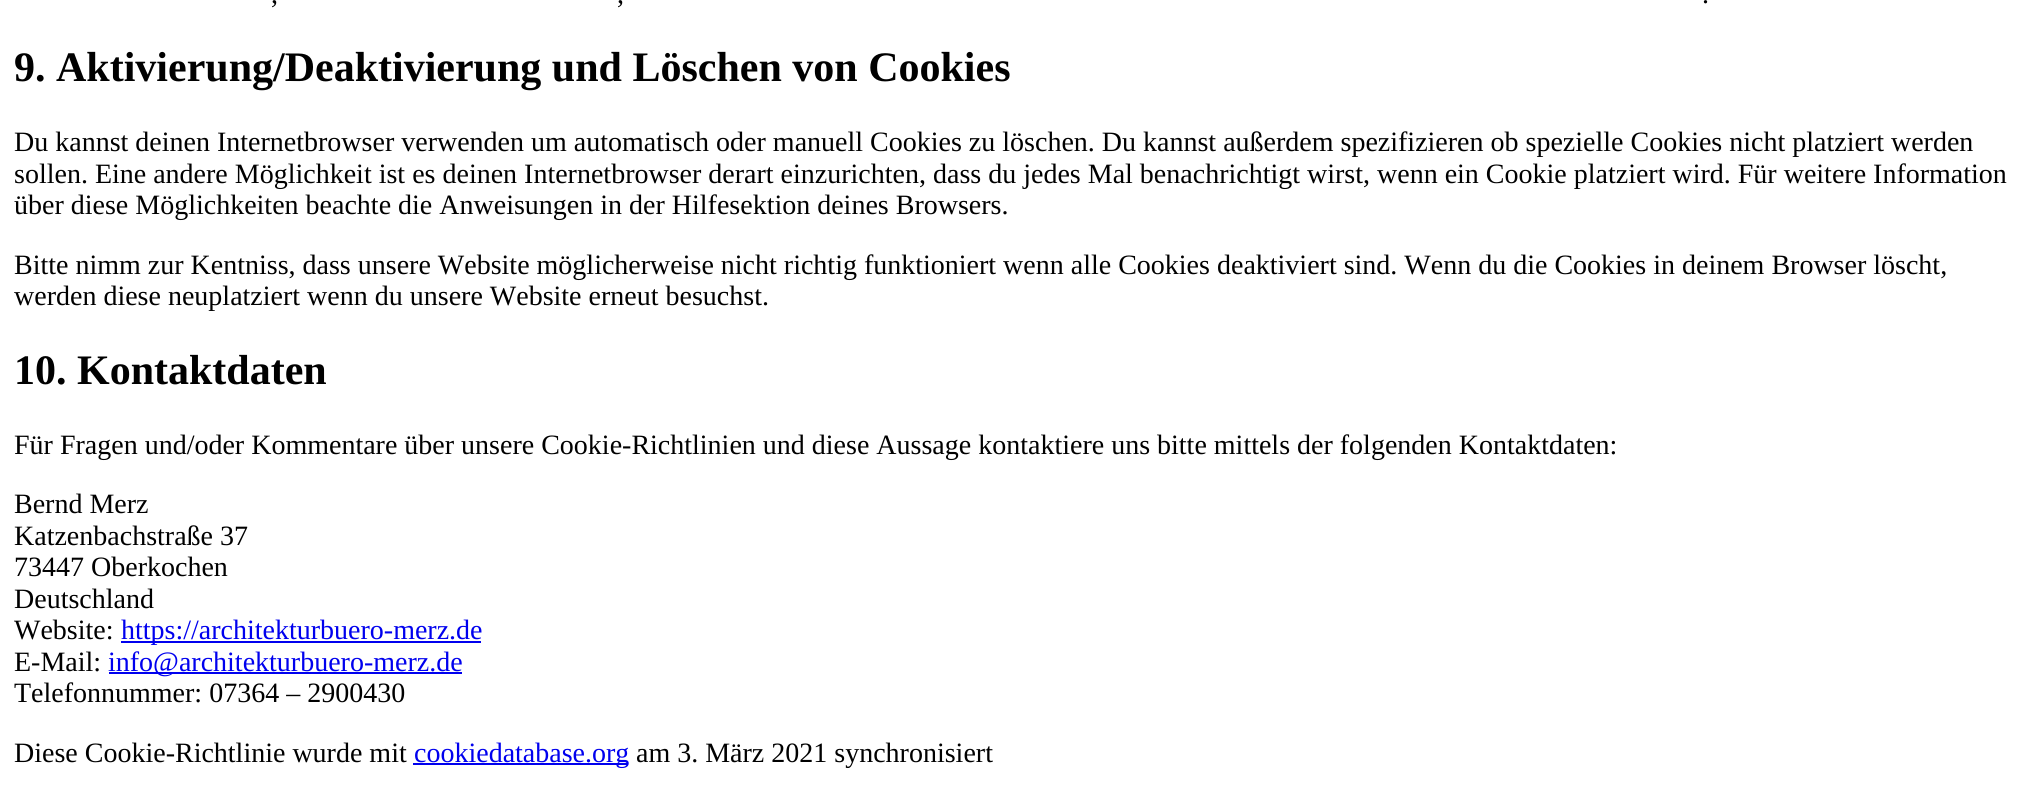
#include <cairo.h>
#include <math.h>
#include <stddef.h>


int main(void) {
    cairo_surface_t *surface = cairo_image_surface_create(CAIRO_FORMAT_RGB24, 2022, 792);
    cairo_t *cr = cairo_create(surface);
    cairo_font_options_t *options = cairo_font_options_create();
    cairo_font_options_set_hint_metrics(options, CAIRO_HINT_METRICS_OFF);
    cairo_font_options_set_hint_style(options, CAIRO_HINT_STYLE_NONE);
    cairo_set_font_options(cr, options);
    cairo_set_miter_limit(cr, 4);
    cairo_set_source_rgb(cr, 1, 1, 1);
    cairo_paint(cr);
    cairo_select_font_face(cr, "Liberation Serif", CAIRO_FONT_SLANT_NORMAL, CAIRO_FONT_WEIGHT_NORMAL);
    cairo_set_font_size(cr, 28);
    cairo_set_source_rgb(cr, 0, 0, 0);
    cairo_move_to(cr, 271, 3);
    cairo_show_text(cr, ",");
    cairo_move_to(cr, 617, 3);
    cairo_show_text(cr, ",");
    cairo_move_to(cr, 1702, 3);
    cairo_show_text(cr, ".");
    cairo_select_font_face(cr, "Liberation Serif", CAIRO_FONT_SLANT_NORMAL, CAIRO_FONT_WEIGHT_BOLD);
    cairo_set_font_size(cr, 42);
    cairo_move_to(cr, 14, 81);
    cairo_show_text(cr, "9. Aktivierung/Deaktivierung und Löschen von Cookies");
    cairo_select_font_face(cr, "Liberation Serif", CAIRO_FONT_SLANT_NORMAL, CAIRO_FONT_WEIGHT_NORMAL);
    cairo_set_font_size(cr, 28);
    cairo_move_to(cr, 14, 151);
    cairo_show_text(cr, "Du kannst deinen Internetbrowser verwenden um automatisch oder manuell Cookies zu löschen. Du kannst außerdem spezifizieren ob spezielle Cookies nicht platziert werden");
    cairo_move_to(cr, 14, 183);
    cairo_show_text(cr, "sollen. Eine andere Möglichkeit ist es deinen Internetbrowser derart einzurichten, dass du jedes Mal benachrichtigt wirst, wenn ein Cookie platziert wird. Für weitere Information");
    cairo_move_to(cr, 14, 214);
    cairo_show_text(cr, "über diese Möglichkeiten beachte die Anweisungen in der Hilfesektion deines Browsers.");
    cairo_move_to(cr, 14, 274);
    cairo_show_text(cr, "Bitte nimm zur Kentniss, dass unsere Website möglicherweise nicht richtig funktioniert wenn alle Cookies deaktiviert sind. Wenn du die Cookies in deinem Browser löscht,");
    cairo_move_to(cr, 14, 305);
    cairo_show_text(cr, "werden diese neuplatziert wenn du unsere Website erneut besuchst.");
    cairo_select_font_face(cr, "Liberation Serif", CAIRO_FONT_SLANT_NORMAL, CAIRO_FONT_WEIGHT_BOLD);
    cairo_set_font_size(cr, 42);
    cairo_move_to(cr, 14, 384);
    cairo_show_text(cr, "10. Kontaktdaten");
    cairo_select_font_face(cr, "Liberation Serif", CAIRO_FONT_SLANT_NORMAL, CAIRO_FONT_WEIGHT_NORMAL);
    cairo_set_font_size(cr, 28);
    cairo_move_to(cr, 14, 454);
    cairo_show_text(cr, "Für Fragen und/oder Kommentare über unsere Cookie-Richtlinien und diese Aussage kontaktiere uns bitte mittels der folgenden Kontaktdaten:");
    cairo_move_to(cr, 14, 513);
    cairo_show_text(cr, "Bernd Merz");
    cairo_move_to(cr, 14, 545);
    cairo_show_text(cr, "Katzenbachstraße 37");
    cairo_move_to(cr, 14, 576);
    cairo_show_text(cr, "73447 Oberkochen");
    cairo_move_to(cr, 14, 608);
    cairo_show_text(cr, "Deutschland");
    cairo_move_to(cr, 14, 639);
    cairo_show_text(cr, "Website:");
    cairo_set_source_rgb(cr, 0, 0, 0.933);
    cairo_rectangle(cr, 121, 641, 360, 2);
    cairo_fill(cr);
    cairo_move_to(cr, 121, 639);
    cairo_show_text(cr, "https://architekturbuero-merz.de");
    cairo_set_source_rgb(cr, 0, 0, 0);
    cairo_move_to(cr, 14, 671);
    cairo_show_text(cr, "E-Mail:");
    cairo_set_source_rgb(cr, 0, 0, 0.933);
    cairo_rectangle(cr, 109, 672, 353, 2);
    cairo_fill(cr);
    cairo_move_to(cr, 108, 671);
    cairo_show_text(cr, "info@architekturbuero-merz.de");
    cairo_set_source_rgb(cr, 0, 0, 0);
    cairo_move_to(cr, 14, 702);
    cairo_show_text(cr, "Telefonnummer: 07364 – 2900430");
    cairo_move_to(cr, 14, 762);
    cairo_show_text(cr, "Diese Cookie-Richtlinie wurde mit");
    cairo_set_source_rgb(cr, 0, 0, 0.933);
    cairo_rectangle(cr, 413, 763, 215, 2);
    cairo_fill(cr);
    cairo_move_to(cr, 414, 762);
    cairo_show_text(cr, "cookiedatabase.org");
    cairo_set_source_rgb(cr, 0, 0, 0);
    cairo_move_to(cr, 636, 762);
    cairo_show_text(cr, "am 3. März 2021 synchronisiert");
    cairo_surface_write_to_png(surface, "page.png");
    cairo_font_options_destroy(options);
    cairo_destroy(cr);
    cairo_surface_destroy(surface);
    return 0;
}
